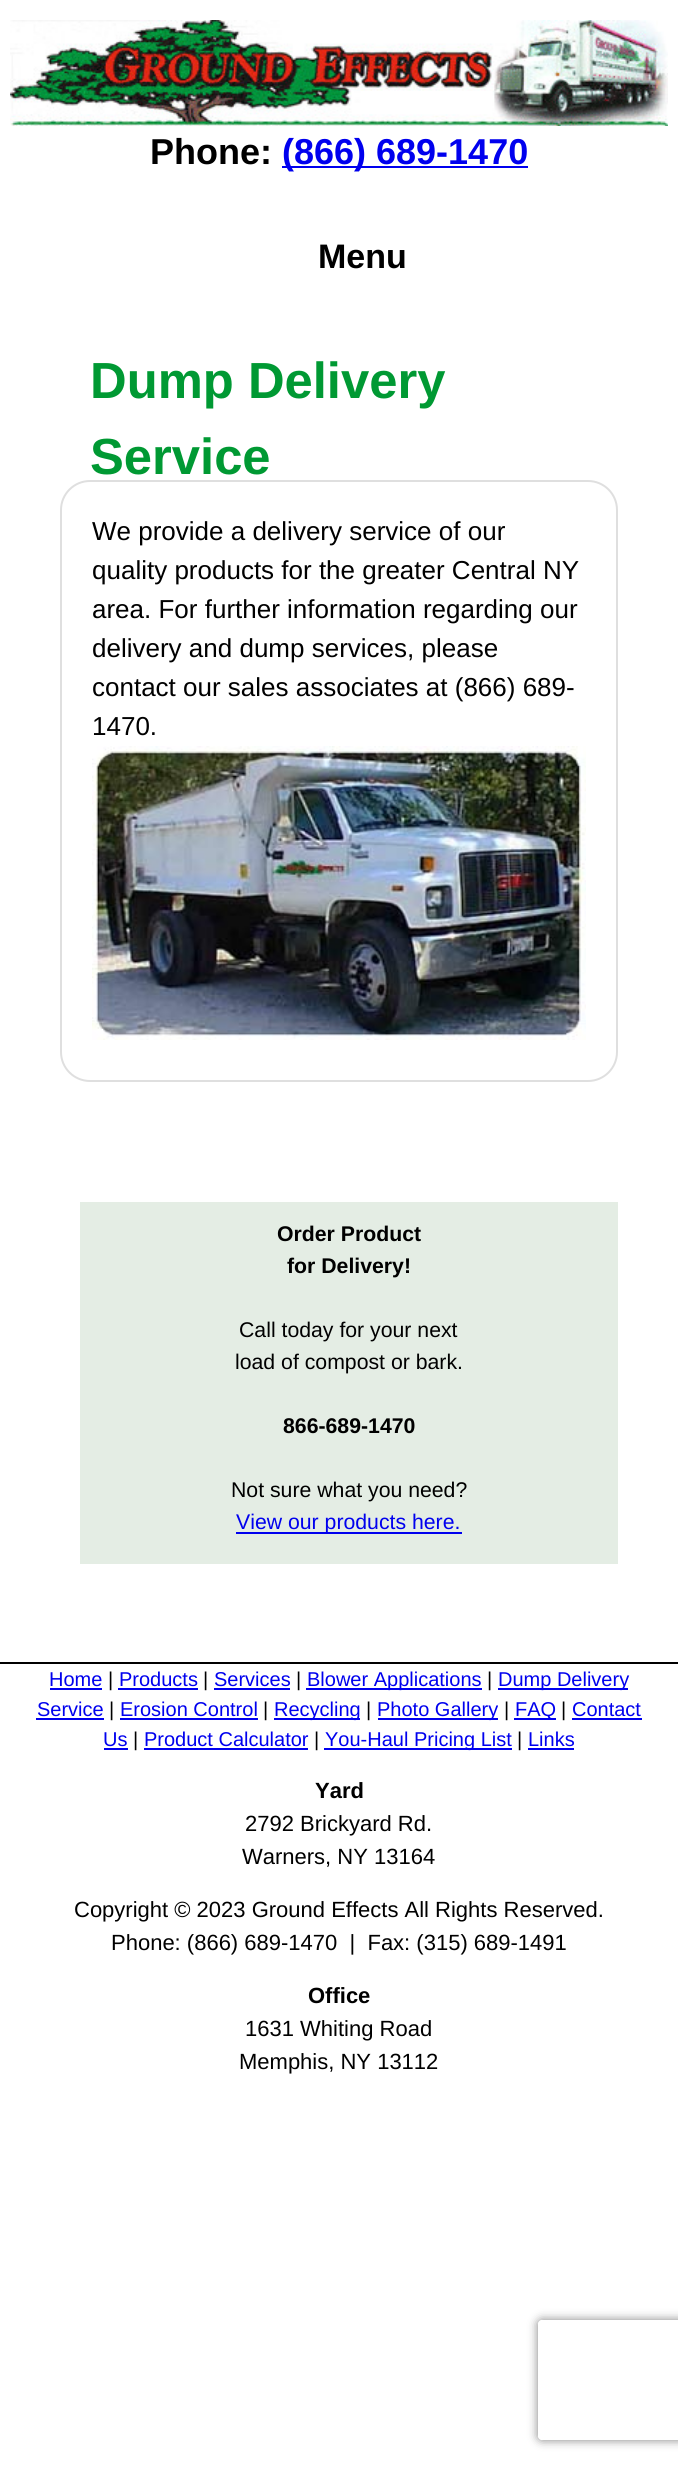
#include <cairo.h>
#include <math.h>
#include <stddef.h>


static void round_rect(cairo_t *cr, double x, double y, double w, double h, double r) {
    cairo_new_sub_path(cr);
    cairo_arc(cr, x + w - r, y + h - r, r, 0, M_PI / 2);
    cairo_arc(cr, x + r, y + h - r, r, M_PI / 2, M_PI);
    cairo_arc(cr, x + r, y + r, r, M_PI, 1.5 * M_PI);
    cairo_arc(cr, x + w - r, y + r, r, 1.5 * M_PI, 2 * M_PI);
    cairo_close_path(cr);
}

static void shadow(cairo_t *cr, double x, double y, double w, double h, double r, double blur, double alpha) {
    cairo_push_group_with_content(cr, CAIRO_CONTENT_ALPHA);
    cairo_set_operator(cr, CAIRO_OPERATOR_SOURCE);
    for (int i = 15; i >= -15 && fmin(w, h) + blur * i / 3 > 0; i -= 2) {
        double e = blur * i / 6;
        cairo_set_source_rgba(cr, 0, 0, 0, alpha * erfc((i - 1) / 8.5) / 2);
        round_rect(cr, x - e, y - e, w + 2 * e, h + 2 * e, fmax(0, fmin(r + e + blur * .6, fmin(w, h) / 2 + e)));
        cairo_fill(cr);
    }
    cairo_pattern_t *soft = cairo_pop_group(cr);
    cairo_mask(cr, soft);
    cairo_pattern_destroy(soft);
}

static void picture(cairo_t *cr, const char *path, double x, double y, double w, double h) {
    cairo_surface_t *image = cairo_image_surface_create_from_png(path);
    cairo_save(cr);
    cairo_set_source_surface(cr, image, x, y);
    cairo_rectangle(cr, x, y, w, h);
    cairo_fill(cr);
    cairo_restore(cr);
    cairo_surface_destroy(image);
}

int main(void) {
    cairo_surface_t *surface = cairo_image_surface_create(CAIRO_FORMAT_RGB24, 678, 2467);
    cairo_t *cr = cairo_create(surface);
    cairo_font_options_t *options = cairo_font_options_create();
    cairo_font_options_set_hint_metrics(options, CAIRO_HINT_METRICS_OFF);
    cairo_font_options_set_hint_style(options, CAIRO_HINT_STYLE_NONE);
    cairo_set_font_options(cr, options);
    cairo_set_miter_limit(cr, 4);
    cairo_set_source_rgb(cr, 1, 1, 1);
    cairo_paint(cr);
    picture(cr, "img1.png", 10, 20, 658, 106);
    cairo_select_font_face(cr, "Liberation Sans", CAIRO_FONT_SLANT_NORMAL, CAIRO_FONT_WEIGHT_BOLD);
    cairo_set_font_size(cr, 36);
    cairo_set_source_rgb(cr, 0, 0, 0);
    cairo_move_to(cr, 150, 164);
    cairo_show_text(cr, "Phone:");
    cairo_set_source_rgb(cr, 0, 0, 0.933);
    cairo_rectangle(cr, 282, 166, 246, 2);
    cairo_fill(cr);
    cairo_move_to(cr, 282, 164);
    cairo_show_text(cr, "(866) 689-1470");
    cairo_set_font_size(cr, 34);
    cairo_set_source_rgb(cr, 0, 0, 0);
    cairo_move_to(cr, 318, 268);
    cairo_show_text(cr, "Menu");
    cairo_set_font_size(cr, 50.75);
    cairo_set_source_rgb(cr, 0, 0.6, 0.2);
    cairo_move_to(cr, 90, 398);
    cairo_show_text(cr, "Dump Delivery");
    cairo_move_to(cr, 90, 474);
    cairo_show_text(cr, "Service");
    round_rect(cr, 61, 481, 556, 600, 29);
    cairo_set_source_rgb(cr, 0.875, 0.875, 0.875);
    cairo_stroke(cr);
    cairo_select_font_face(cr, "Liberation Sans", CAIRO_FONT_SLANT_NORMAL, CAIRO_FONT_WEIGHT_NORMAL);
    cairo_set_font_size(cr, 26);
    cairo_set_source_rgb(cr, 0, 0, 0);
    cairo_move_to(cr, 92, 540);
    cairo_show_text(cr, "We provide a delivery service of our");
    cairo_move_to(cr, 92, 579);
    cairo_show_text(cr, "quality products for the greater Central NY");
    cairo_move_to(cr, 92, 618);
    cairo_show_text(cr, "area. For further information regarding our");
    cairo_move_to(cr, 92, 657);
    cairo_show_text(cr, "delivery and dump services, please");
    cairo_move_to(cr, 92, 696);
    cairo_show_text(cr, "contact our sales associates at (866) 689-");
    cairo_move_to(cr, 92, 735);
    cairo_show_text(cr, "1470.");
    picture(cr, "img2.png", 92, 746, 494, 294);
    cairo_set_source_rgb(cr, 0.894, 0.929, 0.894);
    cairo_rectangle(cr, 80, 1202, 538, 362);
    cairo_fill(cr);
    cairo_select_font_face(cr, "Liberation Sans", CAIRO_FONT_SLANT_NORMAL, CAIRO_FONT_WEIGHT_BOLD);
    cairo_set_font_size(cr, 21.25);
    cairo_set_source_rgb(cr, 0, 0, 0);
    cairo_move_to(cr, 277, 1241);
    cairo_show_text(cr, "Order Product");
    cairo_move_to(cr, 287, 1273);
    cairo_show_text(cr, "for Delivery!");
    cairo_select_font_face(cr, "Liberation Sans", CAIRO_FONT_SLANT_NORMAL, CAIRO_FONT_WEIGHT_NORMAL);
    cairo_move_to(cr, 239, 1337);
    cairo_show_text(cr, "Call today for your next");
    cairo_move_to(cr, 235, 1369);
    cairo_show_text(cr, "load of compost or bark.");
    cairo_select_font_face(cr, "Liberation Sans", CAIRO_FONT_SLANT_NORMAL, CAIRO_FONT_WEIGHT_BOLD);
    cairo_move_to(cr, 283, 1433);
    cairo_show_text(cr, "866-689-1470");
    cairo_select_font_face(cr, "Liberation Sans", CAIRO_FONT_SLANT_NORMAL, CAIRO_FONT_WEIGHT_NORMAL);
    cairo_move_to(cr, 231, 1497);
    cairo_show_text(cr, "Not sure what you need?");
    cairo_set_source_rgb(cr, 0, 0, 0.933);
    cairo_rectangle(cr, 236, 1532, 226, 2);
    cairo_fill(cr);
    cairo_move_to(cr, 236, 1529);
    cairo_show_text(cr, "View our products here.");
    cairo_set_source_rgb(cr, 0, 0, 0);
    cairo_rectangle(cr, 0, 1662, 678, 2);
    cairo_fill(cr);
    cairo_set_font_size(cr, 20);
    cairo_set_source_rgb(cr, 0, 0, 0.933);
    cairo_move_to(cr, 49, 1686);
    cairo_show_text(cr, "Home");
    cairo_rectangle(cr, 50, 1688, 52, 2);
    cairo_fill(cr);
    cairo_set_source_rgb(cr, 0, 0, 0);
    cairo_move_to(cr, 108, 1686);
    cairo_show_text(cr, "|");
    cairo_set_source_rgb(cr, 0, 0, 0.933);
    cairo_move_to(cr, 119, 1686);
    cairo_show_text(cr, "Products");
    cairo_rectangle(cr, 118, 1688, 80, 2);
    cairo_fill(cr);
    cairo_set_source_rgb(cr, 0, 0, 0);
    cairo_move_to(cr, 203, 1686);
    cairo_show_text(cr, "|");
    cairo_set_source_rgb(cr, 0, 0, 0.933);
    cairo_move_to(cr, 214, 1686);
    cairo_show_text(cr, "Services");
    cairo_rectangle(cr, 214, 1688, 76, 2);
    cairo_fill(cr);
    cairo_set_source_rgb(cr, 0, 0, 0);
    cairo_move_to(cr, 296, 1686);
    cairo_show_text(cr, "|");
    cairo_set_source_rgb(cr, 0, 0, 0.933);
    cairo_rectangle(cr, 306, 1688, 176, 2);
    cairo_fill(cr);
    cairo_move_to(cr, 307, 1686);
    cairo_show_text(cr, "Blower Applications");
    cairo_set_source_rgb(cr, 0, 0, 0);
    cairo_move_to(cr, 487, 1686);
    cairo_show_text(cr, "|");
    cairo_set_source_rgb(cr, 0, 0, 0.933);
    cairo_rectangle(cr, 498, 1688, 130, 2);
    cairo_fill(cr);
    cairo_move_to(cr, 498, 1686);
    cairo_show_text(cr, "Dump Delivery");
    cairo_move_to(cr, 37, 1716);
    cairo_show_text(cr, "Service");
    cairo_rectangle(cr, 36, 1718, 68, 2);
    cairo_fill(cr);
    cairo_set_source_rgb(cr, 0, 0, 0);
    cairo_move_to(cr, 109, 1716);
    cairo_show_text(cr, "|");
    cairo_set_source_rgb(cr, 0, 0, 0.933);
    cairo_move_to(cr, 120, 1716);
    cairo_show_text(cr, "Erosion Control");
    cairo_rectangle(cr, 120, 1718, 138, 2);
    cairo_fill(cr);
    cairo_set_source_rgb(cr, 0, 0, 0);
    cairo_move_to(cr, 263, 1716);
    cairo_show_text(cr, "|");
    cairo_set_source_rgb(cr, 0, 0, 0.933);
    cairo_rectangle(cr, 274, 1718, 86, 2);
    cairo_fill(cr);
    cairo_move_to(cr, 274, 1716);
    cairo_show_text(cr, "Recycling");
    cairo_set_source_rgb(cr, 0, 0, 0);
    cairo_move_to(cr, 366, 1716);
    cairo_show_text(cr, "|");
    cairo_set_source_rgb(cr, 0, 0, 0.933);
    cairo_rectangle(cr, 378, 1718, 120, 2);
    cairo_fill(cr);
    cairo_move_to(cr, 377, 1716);
    cairo_show_text(cr, "Photo Gallery");
    cairo_set_source_rgb(cr, 0, 0, 0);
    cairo_move_to(cr, 504, 1716);
    cairo_show_text(cr, "|");
    cairo_set_source_rgb(cr, 0, 0, 0.933);
    cairo_rectangle(cr, 514, 1718, 42, 2);
    cairo_fill(cr);
    cairo_move_to(cr, 515, 1716);
    cairo_show_text(cr, "FAQ");
    cairo_set_source_rgb(cr, 0, 0, 0);
    cairo_move_to(cr, 561, 1716);
    cairo_show_text(cr, "|");
    cairo_set_source_rgb(cr, 0, 0, 0.933);
    cairo_move_to(cr, 572, 1716);
    cairo_show_text(cr, "Contact");
    cairo_rectangle(cr, 572, 1718, 70, 2);
    cairo_fill(cr);
    cairo_move_to(cr, 103, 1746);
    cairo_show_text(cr, "Us");
    cairo_rectangle(cr, 104, 1748, 24, 2);
    cairo_fill(cr);
    cairo_set_source_rgb(cr, 0, 0, 0);
    cairo_move_to(cr, 133, 1746);
    cairo_show_text(cr, "|");
    cairo_set_source_rgb(cr, 0, 0, 0.933);
    cairo_move_to(cr, 144, 1746);
    cairo_show_text(cr, "Product Calculator");
    cairo_rectangle(cr, 144, 1748, 164, 2);
    cairo_fill(cr);
    cairo_set_source_rgb(cr, 0, 0, 0);
    cairo_move_to(cr, 314, 1746);
    cairo_show_text(cr, "|");
    cairo_set_source_rgb(cr, 0, 0, 0.933);
    cairo_rectangle(cr, 324, 1748, 188, 2);
    cairo_fill(cr);
    cairo_move_to(cr, 325, 1746);
    cairo_show_text(cr, "You-Haul Pricing List");
    cairo_set_source_rgb(cr, 0, 0, 0);
    cairo_move_to(cr, 517, 1746);
    cairo_show_text(cr, "|");
    cairo_set_source_rgb(cr, 0, 0, 0.933);
    cairo_move_to(cr, 528, 1746);
    cairo_show_text(cr, "Links");
    cairo_rectangle(cr, 528, 1748, 46, 2);
    cairo_fill(cr);
    cairo_select_font_face(cr, "Liberation Sans", CAIRO_FONT_SLANT_NORMAL, CAIRO_FONT_WEIGHT_BOLD);
    cairo_set_font_size(cr, 22);
    cairo_set_source_rgb(cr, 0, 0, 0);
    cairo_move_to(cr, 315, 1798);
    cairo_show_text(cr, "Yard");
    cairo_select_font_face(cr, "Liberation Sans", CAIRO_FONT_SLANT_NORMAL, CAIRO_FONT_WEIGHT_NORMAL);
    cairo_move_to(cr, 245, 1831);
    cairo_show_text(cr, "2792 Brickyard Rd.");
    cairo_move_to(cr, 242, 1864);
    cairo_show_text(cr, "Warners, NY 13164");
    cairo_move_to(cr, 74, 1917);
    cairo_show_text(cr, "Copyright © 2023 Ground Effects All Rights Reserved.");
    cairo_move_to(cr, 111, 1950);
    cairo_show_text(cr, "Phone: (866) 689-1470  |  Fax: (315) 689-1491");
    cairo_select_font_face(cr, "Liberation Sans", CAIRO_FONT_SLANT_NORMAL, CAIRO_FONT_WEIGHT_BOLD);
    cairo_move_to(cr, 308, 2003);
    cairo_show_text(cr, "Office");
    cairo_select_font_face(cr, "Liberation Sans", CAIRO_FONT_SLANT_NORMAL, CAIRO_FONT_WEIGHT_NORMAL);
    cairo_move_to(cr, 245, 2036);
    cairo_show_text(cr, "1631 Whiting Road");
    cairo_move_to(cr, 239, 2069);
    cairo_show_text(cr, "Memphis, NY 13112");
    cairo_save(cr);
    cairo_set_fill_rule(cr, CAIRO_FILL_RULE_EVEN_ODD);
    cairo_new_path(cr);
    cairo_move_to(cr, 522, 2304);
    cairo_line_to(cr, 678, 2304);
    cairo_line_to(cr, 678, 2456);
    cairo_line_to(cr, 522, 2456);
    cairo_close_path(cr);
    cairo_move_to(cr, 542, 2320);
    cairo_line_to(cr, 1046, 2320);
    cairo_curve_to(cr, 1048, 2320, 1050, 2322, 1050, 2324);
    cairo_line_to(cr, 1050, 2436);
    cairo_curve_to(cr, 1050, 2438, 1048, 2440, 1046, 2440);
    cairo_line_to(cr, 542, 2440);
    cairo_curve_to(cr, 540, 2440, 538, 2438, 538, 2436);
    cairo_line_to(cr, 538, 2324);
    cairo_curve_to(cr, 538, 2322, 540, 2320, 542, 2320);
    cairo_close_path(cr);
    cairo_clip(cr);
    cairo_set_source_rgb(cr, 0.502, 0.502, 0.502);
    shadow(cr, 538, 2320, 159, 120, 4, 5, 1);
    cairo_restore(cr);
    cairo_surface_write_to_png(surface, "page.png");
    cairo_font_options_destroy(options);
    cairo_destroy(cr);
    cairo_surface_destroy(surface);
    return 0;
}
